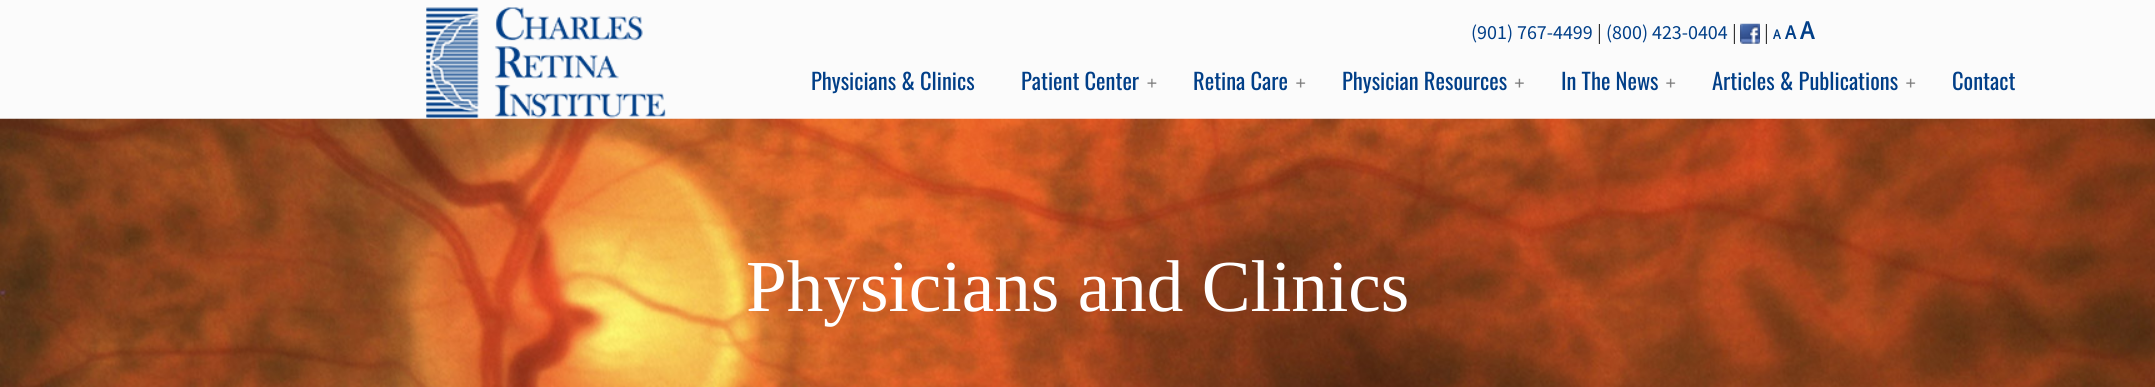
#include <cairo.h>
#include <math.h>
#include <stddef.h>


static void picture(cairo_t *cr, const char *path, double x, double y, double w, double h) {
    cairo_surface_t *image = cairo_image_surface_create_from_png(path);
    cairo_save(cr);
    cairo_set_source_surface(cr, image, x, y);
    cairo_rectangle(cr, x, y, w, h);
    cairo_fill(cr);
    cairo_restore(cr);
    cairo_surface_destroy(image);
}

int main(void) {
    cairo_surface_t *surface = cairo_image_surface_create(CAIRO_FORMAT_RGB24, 2155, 387);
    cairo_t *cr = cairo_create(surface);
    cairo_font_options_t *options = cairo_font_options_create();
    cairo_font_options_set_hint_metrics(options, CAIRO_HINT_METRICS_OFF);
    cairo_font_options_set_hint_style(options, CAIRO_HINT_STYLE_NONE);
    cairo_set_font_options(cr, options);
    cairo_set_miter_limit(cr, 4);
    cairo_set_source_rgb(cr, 0.984, 0.984, 0.984);
    cairo_paint(cr);
    picture(cr, "img1.png", 426, 7, 240, 111);
    cairo_select_font_face(cr, "Source Sans Pro", CAIRO_FONT_SLANT_NORMAL, CAIRO_FONT_WEIGHT_NORMAL);
    cairo_set_font_size(cr, 20);
    cairo_set_source_rgb(cr, 0.004, 0.247, 0.533);
    cairo_move_to(cr, 1471, 39);
    cairo_show_text(cr, "(901) 767-4499");
    cairo_set_source_rgb(cr, 0.2, 0.2, 0.2);
    cairo_move_to(cr, 1597, 39);
    cairo_show_text(cr, "|");
    cairo_set_source_rgb(cr, 0.004, 0.247, 0.533);
    cairo_move_to(cr, 1606, 39);
    cairo_show_text(cr, "(800) 423-0404");
    cairo_set_source_rgb(cr, 0.2, 0.2, 0.2);
    cairo_move_to(cr, 1732, 39);
    cairo_show_text(cr, "|");
    picture(cr, "img2.png", 1740, 23, 20, 21);
    cairo_move_to(cr, 1764, 39);
    cairo_show_text(cr, "|");
    cairo_select_font_face(cr, "Source Sans Pro", CAIRO_FONT_SLANT_NORMAL, CAIRO_FONT_WEIGHT_BOLD);
    cairo_set_font_size(cr, 14);
    cairo_set_source_rgb(cr, 0.004, 0.247, 0.533);
    cairo_move_to(cr, 1773, 39);
    cairo_show_text(cr, "A");
    cairo_set_font_size(cr, 20);
    cairo_move_to(cr, 1785, 39);
    cairo_show_text(cr, "A");
    cairo_set_font_size(cr, 26);
    cairo_move_to(cr, 1800, 39);
    cairo_show_text(cr, "A");
    cairo_select_font_face(cr, "Oswald", CAIRO_FONT_SLANT_NORMAL, CAIRO_FONT_WEIGHT_NORMAL);
    cairo_set_font_size(cr, 22.5);
    cairo_move_to(cr, 811, 90);
    cairo_show_text(cr, "Physicians & Clinics");
    cairo_move_to(cr, 1021, 90);
    cairo_show_text(cr, "Patient Center");
    picture(cr, "img3.png", 1147, 78, 10, 10);
    cairo_move_to(cr, 1193, 90);
    cairo_show_text(cr, "Retina Care");
    picture(cr, "img4.png", 1296, 78, 10, 10);
    cairo_move_to(cr, 1342, 90);
    cairo_show_text(cr, "Physician Resources");
    picture(cr, "img5.png", 1514, 78, 10, 10);
    cairo_move_to(cr, 1561, 90);
    cairo_show_text(cr, "In The News");
    picture(cr, "img4.png", 1666, 78, 10, 10);
    cairo_move_to(cr, 1712, 90);
    cairo_show_text(cr, "Articles & Publications");
    picture(cr, "img4.png", 1906, 78, 10, 10);
    cairo_move_to(cr, 1952, 90);
    cairo_show_text(cr, "Contact");
    picture(cr, "img6.png", 0, 118, 2155, 269);
    cairo_select_font_face(cr, "Liberation Serif", CAIRO_FONT_SLANT_NORMAL, CAIRO_FONT_WEIGHT_NORMAL);
    cairo_set_font_size(cr, 73.25);
    cairo_set_source_rgb(cr, 1, 1, 1);
    cairo_move_to(cr, 746, 311);
    cairo_show_text(cr, "Physicians and Clinics");
    cairo_surface_write_to_png(surface, "page.png");
    cairo_font_options_destroy(options);
    cairo_destroy(cr);
    cairo_surface_destroy(surface);
    return 0;
}
